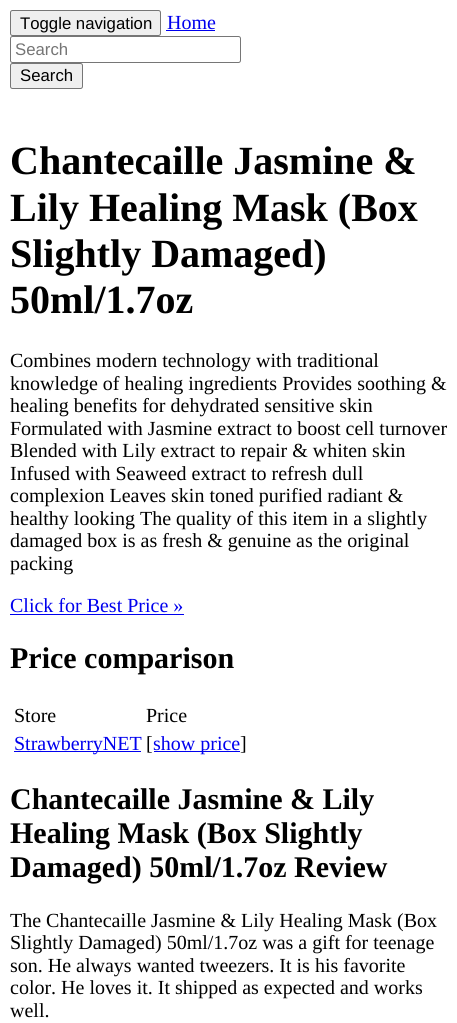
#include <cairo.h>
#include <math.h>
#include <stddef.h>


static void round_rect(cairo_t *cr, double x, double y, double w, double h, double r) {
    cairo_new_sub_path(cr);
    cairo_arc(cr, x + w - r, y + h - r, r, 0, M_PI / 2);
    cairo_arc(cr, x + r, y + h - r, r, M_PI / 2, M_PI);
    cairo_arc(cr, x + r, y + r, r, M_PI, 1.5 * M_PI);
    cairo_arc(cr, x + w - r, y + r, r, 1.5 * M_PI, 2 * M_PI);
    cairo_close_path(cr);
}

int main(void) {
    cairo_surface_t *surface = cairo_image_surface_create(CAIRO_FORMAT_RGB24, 457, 1023);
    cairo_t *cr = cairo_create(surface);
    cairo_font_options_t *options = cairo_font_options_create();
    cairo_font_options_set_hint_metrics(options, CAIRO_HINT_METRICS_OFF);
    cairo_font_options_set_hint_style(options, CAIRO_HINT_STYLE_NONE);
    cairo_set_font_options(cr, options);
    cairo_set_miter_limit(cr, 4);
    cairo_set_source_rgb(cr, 1, 1, 1);
    cairo_paint(cr);
    cairo_set_source_rgb(cr, 0.937, 0.937, 0.937);
    round_rect(cr, 10.5, 10.5, 150, 25, 2);
    cairo_fill_preserve(cr);
    cairo_set_source_rgb(cr, 0.463, 0.463, 0.463);
    cairo_set_line_width(cr, 1);
    cairo_stroke(cr);
    cairo_select_font_face(cr, "Liberation Sans", CAIRO_FONT_SLANT_NORMAL, CAIRO_FONT_WEIGHT_NORMAL);
    cairo_set_font_size(cr, 16.75);
    cairo_set_source_rgb(cr, 0, 0, 0);
    cairo_move_to(cr, 20, 29);
    cairo_show_text(cr, "Toggle navigation");
    cairo_select_font_face(cr, "Liberation Serif", CAIRO_FONT_SLANT_NORMAL, CAIRO_FONT_WEIGHT_NORMAL);
    cairo_set_font_size(cr, 20);
    cairo_set_source_rgb(cr, 0, 0, 0.933);
    cairo_move_to(cr, 167, 29);
    cairo_show_text(cr, "Home");
    cairo_rectangle(cr, 166, 30, 49, 1);
    cairo_fill(cr);
    round_rect(cr, 10.5, 36.5, 230, 26, 2);
    cairo_set_source_rgb(cr, 0.463, 0.463, 0.463);
    cairo_stroke(cr);
    cairo_select_font_face(cr, "Liberation Sans", CAIRO_FONT_SLANT_NORMAL, CAIRO_FONT_WEIGHT_NORMAL);
    cairo_set_font_size(cr, 16.75);
    cairo_set_source_rgb(cr, 0.459, 0.459, 0.459);
    cairo_move_to(cr, 15, 55);
    cairo_show_text(cr, "Search");
    cairo_set_source_rgb(cr, 0.937, 0.937, 0.937);
    round_rect(cr, 10.5, 63.5, 72, 25, 2);
    cairo_fill_preserve(cr);
    cairo_set_source_rgb(cr, 0.463, 0.463, 0.463);
    cairo_stroke(cr);
    cairo_set_source_rgb(cr, 0, 0, 0);
    cairo_move_to(cr, 20, 81);
    cairo_show_text(cr, "Search");
    cairo_select_font_face(cr, "Liberation Serif", CAIRO_FONT_SLANT_NORMAL, CAIRO_FONT_WEIGHT_BOLD);
    cairo_set_font_size(cr, 40);
    cairo_move_to(cr, 10, 174);
    cairo_show_text(cr, "Chantecaille Jasmine &");
    cairo_move_to(cr, 10, 221);
    cairo_show_text(cr, "Lily Healing Mask (Box");
    cairo_move_to(cr, 10, 267);
    cairo_show_text(cr, "Slightly Damaged)");
    cairo_move_to(cr, 10, 313);
    cairo_show_text(cr, "50ml/1.7oz");
    cairo_select_font_face(cr, "Liberation Serif", CAIRO_FONT_SLANT_NORMAL, CAIRO_FONT_WEIGHT_NORMAL);
    cairo_set_font_size(cr, 20);
    cairo_move_to(cr, 10, 367);
    cairo_show_text(cr, "Combines modern technology with traditional");
    cairo_move_to(cr, 10, 390);
    cairo_show_text(cr, "knowledge of healing ingredients Provides soothing &");
    cairo_move_to(cr, 10, 412);
    cairo_show_text(cr, "healing benefits for dehydrated sensitive skin");
    cairo_move_to(cr, 10, 435);
    cairo_show_text(cr, "Formulated with Jasmine extract to boost cell turnover");
    cairo_move_to(cr, 10, 457);
    cairo_show_text(cr, "Blended with Lily extract to repair & whiten skin");
    cairo_move_to(cr, 10, 480);
    cairo_show_text(cr, "Infused with Seaweed extract to refresh dull");
    cairo_move_to(cr, 10, 502);
    cairo_show_text(cr, "complexion Leaves skin toned purified radiant &");
    cairo_move_to(cr, 10, 525);
    cairo_show_text(cr, "healthy looking The quality of this item in a slightly");
    cairo_move_to(cr, 10, 547);
    cairo_show_text(cr, "damaged box is as fresh & genuine as the original");
    cairo_move_to(cr, 10, 570);
    cairo_show_text(cr, "packing");
    cairo_set_source_rgb(cr, 0, 0, 0.933);
    cairo_move_to(cr, 10, 612);
    cairo_show_text(cr, "Click for Best Price »");
    cairo_rectangle(cr, 10, 614, 174, 1);
    cairo_fill(cr);
    cairo_select_font_face(cr, "Liberation Serif", CAIRO_FONT_SLANT_NORMAL, CAIRO_FONT_WEIGHT_BOLD);
    cairo_set_font_size(cr, 30);
    cairo_set_source_rgb(cr, 0, 0, 0);
    cairo_move_to(cr, 10, 668);
    cairo_show_text(cr, "Price comparison");
    cairo_select_font_face(cr, "Liberation Serif", CAIRO_FONT_SLANT_NORMAL, CAIRO_FONT_WEIGHT_NORMAL);
    cairo_set_font_size(cr, 20);
    cairo_move_to(cr, 14, 722);
    cairo_show_text(cr, "Store");
    cairo_move_to(cr, 146, 722);
    cairo_show_text(cr, "Price");
    cairo_set_source_rgb(cr, 0, 0, 0.933);
    cairo_rectangle(cr, 14, 751, 127, 1);
    cairo_fill(cr);
    cairo_move_to(cr, 14, 750);
    cairo_show_text(cr, "StrawberryNET");
    cairo_set_source_rgb(cr, 0, 0, 0);
    cairo_move_to(cr, 146, 750);
    cairo_show_text(cr, "[");
    cairo_set_source_rgb(cr, 0, 0, 0.933);
    cairo_rectangle(cr, 154, 751, 86, 1);
    cairo_fill(cr);
    cairo_move_to(cr, 153, 750);
    cairo_show_text(cr, "show price");
    cairo_set_source_rgb(cr, 0, 0, 0);
    cairo_move_to(cr, 240, 750);
    cairo_show_text(cr, "]");
    cairo_select_font_face(cr, "Liberation Serif", CAIRO_FONT_SLANT_NORMAL, CAIRO_FONT_WEIGHT_BOLD);
    cairo_set_font_size(cr, 30);
    cairo_move_to(cr, 10, 809);
    cairo_show_text(cr, "Chantecaille Jasmine & Lily");
    cairo_move_to(cr, 10, 843);
    cairo_show_text(cr, "Healing Mask (Box Slightly");
    cairo_move_to(cr, 10, 877);
    cairo_show_text(cr, "Damaged) 50ml/1.7oz Review");
    cairo_select_font_face(cr, "Liberation Serif", CAIRO_FONT_SLANT_NORMAL, CAIRO_FONT_WEIGHT_NORMAL);
    cairo_set_font_size(cr, 20);
    cairo_move_to(cr, 10, 927);
    cairo_show_text(cr, "The Chantecaille Jasmine & Lily Healing Mask (Box");
    cairo_move_to(cr, 10, 949);
    cairo_show_text(cr, "Slightly Damaged) 50ml/1.7oz was a gift for teenage");
    cairo_move_to(cr, 10, 972);
    cairo_show_text(cr, "son. He always wanted tweezers. It is his favorite");
    cairo_move_to(cr, 10, 994);
    cairo_show_text(cr, "color. He loves it. It shipped as expected and works");
    cairo_move_to(cr, 10, 1017);
    cairo_show_text(cr, "well.");
    cairo_surface_write_to_png(surface, "page.png");
    cairo_font_options_destroy(options);
    cairo_destroy(cr);
    cairo_surface_destroy(surface);
    return 0;
}
